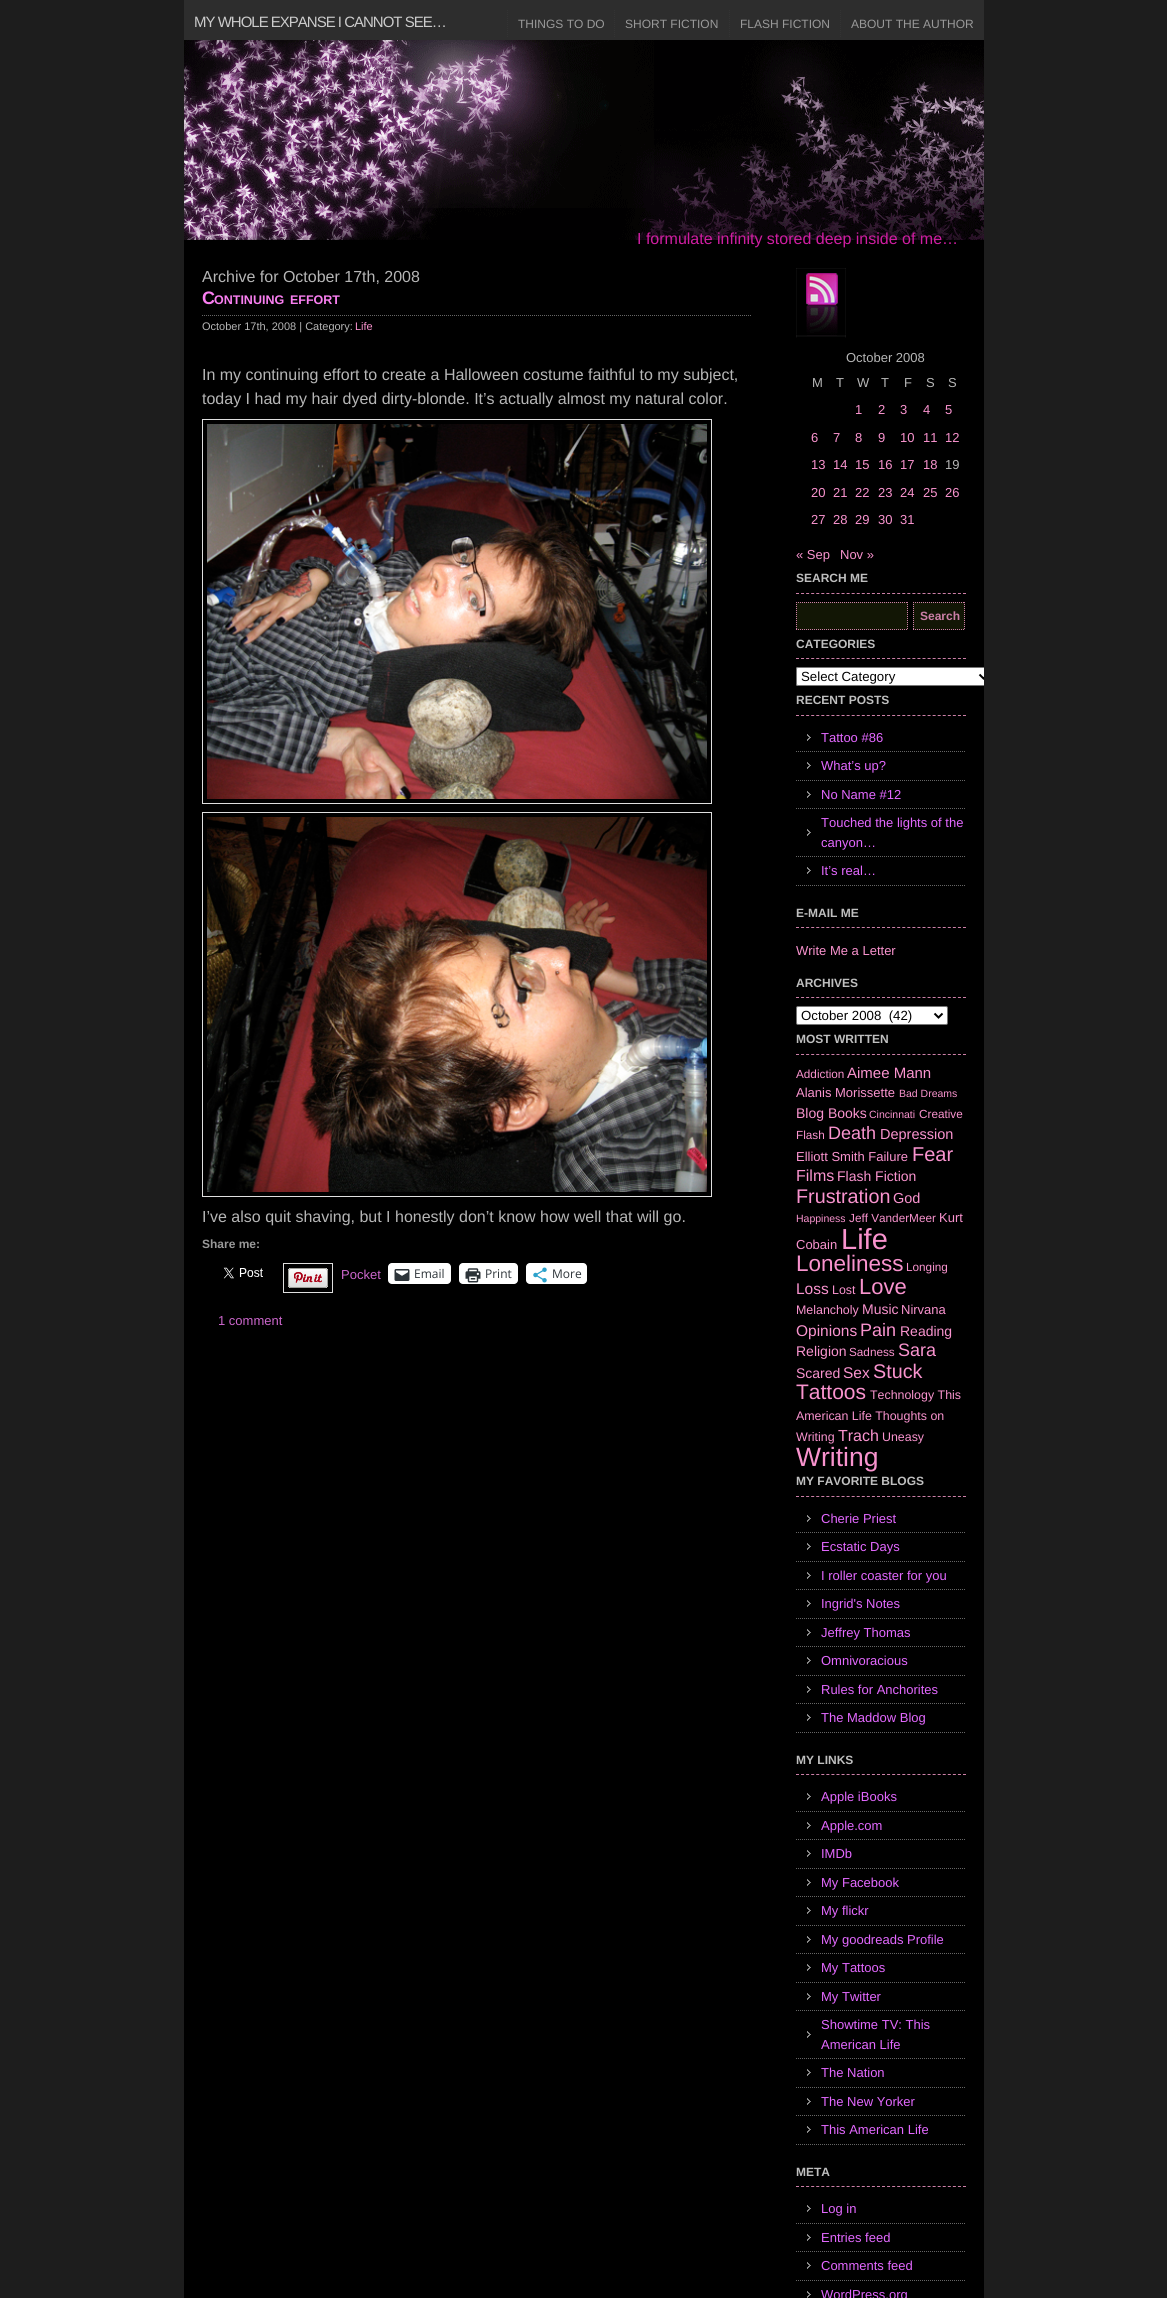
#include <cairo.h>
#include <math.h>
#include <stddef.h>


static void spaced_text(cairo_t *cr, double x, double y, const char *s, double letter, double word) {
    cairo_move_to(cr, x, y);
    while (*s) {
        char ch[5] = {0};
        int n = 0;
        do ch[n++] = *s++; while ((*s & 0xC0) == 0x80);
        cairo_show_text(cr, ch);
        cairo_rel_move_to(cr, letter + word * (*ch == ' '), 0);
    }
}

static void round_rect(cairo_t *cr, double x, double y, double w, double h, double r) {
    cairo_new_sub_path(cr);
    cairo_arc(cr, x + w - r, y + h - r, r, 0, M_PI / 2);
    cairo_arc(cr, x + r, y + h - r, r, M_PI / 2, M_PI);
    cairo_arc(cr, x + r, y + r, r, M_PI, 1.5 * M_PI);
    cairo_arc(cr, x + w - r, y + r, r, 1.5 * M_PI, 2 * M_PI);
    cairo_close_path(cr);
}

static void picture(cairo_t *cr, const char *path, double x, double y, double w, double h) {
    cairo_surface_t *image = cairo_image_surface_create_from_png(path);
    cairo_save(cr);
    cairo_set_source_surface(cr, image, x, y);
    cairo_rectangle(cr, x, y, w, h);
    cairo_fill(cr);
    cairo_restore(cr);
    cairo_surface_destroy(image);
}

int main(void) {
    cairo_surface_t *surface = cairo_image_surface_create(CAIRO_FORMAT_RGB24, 1167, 2298);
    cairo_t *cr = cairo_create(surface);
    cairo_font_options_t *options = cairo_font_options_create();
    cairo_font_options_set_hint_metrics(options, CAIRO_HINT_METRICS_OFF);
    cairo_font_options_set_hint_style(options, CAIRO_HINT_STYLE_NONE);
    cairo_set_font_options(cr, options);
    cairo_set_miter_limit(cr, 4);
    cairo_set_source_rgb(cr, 0.114, 0.114, 0.114);
    cairo_paint(cr);
    cairo_set_source_rgb(cr, 0.176, 0.176, 0.176);
    cairo_rectangle(cr, 184, 0, 800, 40);
    cairo_fill(cr);
    cairo_select_font_face(cr, "Liberation Sans", CAIRO_FONT_SLANT_NORMAL, CAIRO_FONT_WEIGHT_NORMAL);
    cairo_set_font_size(cr, 15);
    cairo_set_source_rgb(cr, 0.8, 0.8, 0.8);
    spaced_text(cr, 194, 27, "MY WHOLE EXPANSE I CANNOT SEE…", -1, 0);
    cairo_new_path(cr);
    cairo_move_to(cr, 507.5, 10);
    cairo_line_to(cr, 507.5, 38);
    cairo_set_source_rgb(cr, 0.2, 0.2, 0.2);
    cairo_set_line_width(cr, 1);
    cairo_set_dash(cr, (double[]){1, 1}, 2, 0);
    cairo_stroke(cr);
    cairo_set_font_size(cr, 12);
    cairo_set_source_rgb(cr, 0.6, 0.6, 0.6);
    cairo_move_to(cr, 518, 28);
    cairo_show_text(cr, "THINGS TO DO");
    cairo_new_path(cr);
    cairo_move_to(cr, 614.5, 10);
    cairo_line_to(cr, 614.5, 38);
    cairo_set_source_rgb(cr, 0.2, 0.2, 0.2);
    cairo_stroke(cr);
    cairo_set_source_rgb(cr, 0.6, 0.6, 0.6);
    cairo_move_to(cr, 625, 28);
    cairo_show_text(cr, "SHORT FICTION");
    cairo_new_path(cr);
    cairo_move_to(cr, 729.5, 10);
    cairo_line_to(cr, 729.5, 38);
    cairo_set_source_rgb(cr, 0.2, 0.2, 0.2);
    cairo_stroke(cr);
    cairo_set_source_rgb(cr, 0.6, 0.6, 0.6);
    cairo_move_to(cr, 740, 28);
    cairo_show_text(cr, "FLASH FICTION");
    cairo_new_path(cr);
    cairo_move_to(cr, 840.5, 10);
    cairo_line_to(cr, 840.5, 38);
    cairo_set_source_rgb(cr, 0.2, 0.2, 0.2);
    cairo_stroke(cr);
    cairo_set_source_rgb(cr, 0.6, 0.6, 0.6);
    cairo_move_to(cr, 851, 28);
    cairo_show_text(cr, "ABOUT THE AUTHOR");
    cairo_set_source_rgb(cr, 0, 0, 0);
    cairo_rectangle(cr, 184, 240, 800, 2058);
    cairo_fill(cr);
    picture(cr, "img1.png", 184, 40, 800, 200);
    cairo_set_font_size(cr, 16);
    cairo_set_source_rgb(cr, 0.812, 0.114, 0.631);
    cairo_move_to(cr, 637, 244);
    cairo_show_text(cr, "I formulate infinity stored deep inside of me…");
    cairo_set_source_rgb(cr, 0.714, 0.714, 0.714);
    cairo_move_to(cr, 202, 282);
    cairo_show_text(cr, "Archive for October 17th, 2008");
    cairo_select_font_face(cr, "Liberation Sans", CAIRO_FONT_SLANT_NORMAL, CAIRO_FONT_WEIGHT_BOLD);
    cairo_set_font_size(cr, 18);
    cairo_set_source_rgb(cr, 0.98, 0.498, 0.945);
    cairo_move_to(cr, 202, 304);
    cairo_show_text(cr, "C");
    cairo_set_font_size(cr, 12.5);
    cairo_move_to(cr, 214, 304);
    cairo_show_text(cr, "ONTINUING");
    cairo_move_to(cr, 290, 304);
    cairo_show_text(cr, "EFFORT");
    cairo_new_path(cr);
    cairo_move_to(cr, 202, 315.5);
    cairo_line_to(cr, 752, 315.5);
    cairo_set_source_rgb(cr, 0.4, 0.4, 0.4);
    cairo_stroke(cr);
    cairo_select_font_face(cr, "Liberation Sans", CAIRO_FONT_SLANT_NORMAL, CAIRO_FONT_WEIGHT_NORMAL);
    cairo_set_font_size(cr, 11);
    cairo_set_source_rgb(cr, 0.714, 0.714, 0.714);
    cairo_move_to(cr, 202, 330);
    cairo_show_text(cr, "October 17th, 2008 | Category:");
    cairo_set_source_rgb(cr, 0.976, 0.576, 0.808);
    cairo_move_to(cr, 355, 330);
    cairo_show_text(cr, "Life");
    cairo_set_font_size(cr, 16);
    cairo_set_source_rgb(cr, 0.714, 0.714, 0.714);
    cairo_move_to(cr, 202, 380);
    cairo_show_text(cr, "In my continuing effort to create a Halloween costume faithful to my subject,");
    cairo_move_to(cr, 202, 404);
    cairo_show_text(cr, "today I had my hair dyed dirty-blonde. It’s actually almost my natural color.");
    cairo_rectangle(cr, 202.5, 419.5, 509, 384);
    cairo_set_source_rgb(cr, 0.875, 0.875, 0.875);
    cairo_set_dash(cr, NULL, 0, 0);
    cairo_stroke(cr);
    picture(cr, "img2.png", 207, 424, 500, 375);
    cairo_rectangle(cr, 202.5, 812.5, 509, 384);
    cairo_stroke(cr);
    picture(cr, "img3.png", 207, 817, 500, 375);
    cairo_set_source_rgb(cr, 0.714, 0.714, 0.714);
    cairo_move_to(cr, 202, 1222);
    cairo_show_text(cr, "I’ve also quit shaving, but I honestly don’t know how well that will go.");
    cairo_select_font_face(cr, "Liberation Sans", CAIRO_FONT_SLANT_NORMAL, CAIRO_FONT_WEIGHT_BOLD);
    cairo_set_font_size(cr, 12);
    cairo_set_source_rgb(cr, 0.6, 0.6, 0.6);
    cairo_move_to(cr, 202, 1248);
    cairo_show_text(cr, "Share me:");
    picture(cr, "img4.png", 223, 1267, 40, 12);
    cairo_rectangle(cr, 283.5, 1263.5, 49, 29);
    cairo_set_source_rgb(cr, 0.875, 0.875, 0.875);
    cairo_stroke(cr);
    picture(cr, "img5.png", 288, 1268, 40, 20);
    cairo_select_font_face(cr, "Liberation Sans", CAIRO_FONT_SLANT_NORMAL, CAIRO_FONT_WEIGHT_NORMAL);
    cairo_set_font_size(cr, 13);
    cairo_set_source_rgb(cr, 0.8, 0.4, 0.8);
    cairo_move_to(cr, 341, 1279);
    cairo_show_text(cr, "Pocket");
    cairo_set_source_rgb(cr, 1, 1, 1);
    round_rect(cr, 388, 1263, 63, 21, 4);
    cairo_fill(cr);
    picture(cr, "img6.png", 394, 1269, 16, 12);
    cairo_select_font_face(cr, "Open Sans", CAIRO_FONT_SLANT_NORMAL, CAIRO_FONT_WEIGHT_NORMAL);
    cairo_set_font_size(cr, 12);
    cairo_set_source_rgb(cr, 0.173, 0.2, 0.22);
    cairo_move_to(cr, 414, 1278);
    cairo_show_text(cr, "Email");
    cairo_set_source_rgb(cr, 1, 1, 1);
    round_rect(cr, 459, 1263, 59, 21, 4);
    cairo_fill(cr);
    picture(cr, "img7.png", 465, 1268, 16, 15);
    cairo_set_source_rgb(cr, 0.173, 0.2, 0.22);
    cairo_move_to(cr, 485, 1278);
    cairo_show_text(cr, "Print");
    cairo_set_source_rgb(cr, 1, 1, 1);
    round_rect(cr, 526, 1263, 61, 21, 4);
    cairo_fill(cr);
    picture(cr, "img8.png", 533, 1267, 14, 16);
    cairo_set_source_rgb(cr, 0.173, 0.2, 0.22);
    cairo_move_to(cr, 552, 1278);
    cairo_show_text(cr, "More");
    cairo_select_font_face(cr, "Liberation Sans", CAIRO_FONT_SLANT_NORMAL, CAIRO_FONT_WEIGHT_NORMAL);
    cairo_set_font_size(cr, 13);
    cairo_set_source_rgb(cr, 0.8, 0.4, 0.8);
    cairo_move_to(cr, 218, 1325);
    cairo_show_text(cr, "1 comment");
    picture(cr, "img9.png", 796, 268, 50, 70);
    cairo_set_source_rgb(cr, 0.714, 0.714, 0.714);
    cairo_move_to(cr, 846, 362);
    cairo_show_text(cr, "October 2008");
    cairo_move_to(cr, 812, 387);
    cairo_show_text(cr, "M");
    cairo_move_to(cr, 836, 387);
    cairo_show_text(cr, "T");
    cairo_move_to(cr, 857, 387);
    cairo_show_text(cr, "W");
    cairo_move_to(cr, 881, 387);
    cairo_show_text(cr, "T");
    cairo_move_to(cr, 904, 387);
    cairo_show_text(cr, "F");
    cairo_move_to(cr, 926, 387);
    cairo_show_text(cr, "S");
    cairo_move_to(cr, 948, 387);
    cairo_show_text(cr, "S");
    cairo_set_source_rgb(cr, 0.976, 0.576, 0.808);
    cairo_move_to(cr, 855, 414);
    cairo_show_text(cr, "1");
    cairo_move_to(cr, 878, 414);
    cairo_show_text(cr, "2");
    cairo_move_to(cr, 900, 414);
    cairo_show_text(cr, "3");
    cairo_move_to(cr, 923, 414);
    cairo_show_text(cr, "4");
    cairo_move_to(cr, 945, 414);
    cairo_show_text(cr, "5");
    cairo_move_to(cr, 811, 442);
    cairo_show_text(cr, "6");
    cairo_move_to(cr, 833, 442);
    cairo_show_text(cr, "7");
    cairo_move_to(cr, 855, 442);
    cairo_show_text(cr, "8");
    cairo_move_to(cr, 878, 442);
    cairo_show_text(cr, "9");
    cairo_move_to(cr, 900, 442);
    cairo_show_text(cr, "10");
    cairo_move_to(cr, 923, 442);
    cairo_show_text(cr, "11");
    cairo_move_to(cr, 945, 442);
    cairo_show_text(cr, "12");
    cairo_move_to(cr, 811, 469);
    cairo_show_text(cr, "13");
    cairo_move_to(cr, 833, 469);
    cairo_show_text(cr, "14");
    cairo_move_to(cr, 855, 469);
    cairo_show_text(cr, "15");
    cairo_move_to(cr, 878, 469);
    cairo_show_text(cr, "16");
    cairo_move_to(cr, 900, 469);
    cairo_show_text(cr, "17");
    cairo_move_to(cr, 923, 469);
    cairo_show_text(cr, "18");
    cairo_set_source_rgb(cr, 0.714, 0.714, 0.714);
    cairo_move_to(cr, 945, 469);
    cairo_show_text(cr, "19");
    cairo_set_source_rgb(cr, 0.976, 0.576, 0.808);
    cairo_move_to(cr, 811, 497);
    cairo_show_text(cr, "20");
    cairo_move_to(cr, 833, 497);
    cairo_show_text(cr, "21");
    cairo_move_to(cr, 855, 497);
    cairo_show_text(cr, "22");
    cairo_move_to(cr, 878, 497);
    cairo_show_text(cr, "23");
    cairo_move_to(cr, 900, 497);
    cairo_show_text(cr, "24");
    cairo_move_to(cr, 923, 497);
    cairo_show_text(cr, "25");
    cairo_move_to(cr, 945, 497);
    cairo_show_text(cr, "26");
    cairo_move_to(cr, 811, 524);
    cairo_show_text(cr, "27");
    cairo_move_to(cr, 833, 524);
    cairo_show_text(cr, "28");
    cairo_move_to(cr, 855, 524);
    cairo_show_text(cr, "29");
    cairo_move_to(cr, 878, 524);
    cairo_show_text(cr, "30");
    cairo_move_to(cr, 900, 524);
    cairo_show_text(cr, "31");
    cairo_move_to(cr, 796, 559);
    cairo_show_text(cr, "« Sep");
    cairo_move_to(cr, 840, 559);
    cairo_show_text(cr, "Nov »");
    cairo_new_path(cr);
    cairo_move_to(cr, 796, 593.5);
    cairo_line_to(cr, 966, 593.5);
    cairo_set_source_rgb(cr, 0.8, 0.498, 0.655);
    cairo_set_dash(cr, (double[]){3, 2.06}, 2, 0);
    cairo_stroke(cr);
    cairo_select_font_face(cr, "Liberation Sans", CAIRO_FONT_SLANT_NORMAL, CAIRO_FONT_WEIGHT_BOLD);
    cairo_set_font_size(cr, 12);
    cairo_set_source_rgb(cr, 0.749, 0.749, 0.749);
    cairo_move_to(cr, 796, 582);
    cairo_show_text(cr, "SEARCH ME");
    cairo_set_source_rgb(cr, 0.071, 0.086, 0.02);
    cairo_rectangle(cr, 796, 602, 112, 28);
    cairo_fill(cr);
    cairo_new_path(cr);
    cairo_move_to(cr, 796, 602.5);
    cairo_line_to(cr, 908, 602.5);
    cairo_set_source_rgb(cr, 0.8, 0.498, 0.655);
    cairo_set_dash(cr, (double[]){1, 1}, 2, 0);
    cairo_stroke(cr);
    cairo_new_path(cr);
    cairo_move_to(cr, 907.5, 602);
    cairo_line_to(cr, 907.5, 630);
    cairo_stroke(cr);
    cairo_new_path(cr);
    cairo_move_to(cr, 796, 629.5);
    cairo_line_to(cr, 908, 629.5);
    cairo_stroke(cr);
    cairo_new_path(cr);
    cairo_move_to(cr, 796.5, 602);
    cairo_line_to(cr, 796.5, 630);
    cairo_stroke(cr);
    cairo_set_source_rgb(cr, 0.071, 0.086, 0.02);
    cairo_rectangle(cr, 913, 602, 52, 28);
    cairo_fill(cr);
    cairo_new_path(cr);
    cairo_move_to(cr, 913, 602.5);
    cairo_line_to(cr, 965, 602.5);
    cairo_move_to(cr, 964.5, 602);
    cairo_line_to(cr, 964.5, 630);
    cairo_move_to(cr, 913, 629.5);
    cairo_line_to(cr, 965, 629.5);
    cairo_move_to(cr, 913.5, 602);
    cairo_line_to(cr, 913.5, 630);
    cairo_set_source_rgb(cr, 0.8, 0.498, 0.655);
    cairo_stroke(cr);
    cairo_move_to(cr, 920, 620);
    cairo_show_text(cr, "Search");
    cairo_new_path(cr);
    cairo_move_to(cr, 796, 658.5);
    cairo_line_to(cr, 966, 658.5);
    cairo_set_dash(cr, (double[]){3, 2.06}, 2, 0);
    cairo_stroke(cr);
    cairo_set_source_rgb(cr, 0.749, 0.749, 0.749);
    cairo_move_to(cr, 796, 648);
    cairo_show_text(cr, "CATEGORIES");
    cairo_set_source_rgb(cr, 1, 1, 1);
    cairo_new_path(cr);
    cairo_move_to(cr, 798, 667);
    cairo_line_to(cr, 984, 667);
    cairo_line_to(cr, 984, 686);
    cairo_line_to(cr, 798, 686);
    cairo_curve_to(cr, 797, 686, 796, 685, 796, 684);
    cairo_line_to(cr, 796, 669);
    cairo_curve_to(cr, 796, 668, 797, 667, 798, 667);
    cairo_close_path(cr);
    cairo_fill(cr);
    cairo_save(cr);
    cairo_rectangle(cr, 184, 40, 800, 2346);
    cairo_clip(cr);
    round_rect(cr, 796.5, 667.5, 196, 18, 1.5);
    cairo_set_source_rgb(cr, 0.463, 0.463, 0.463);
    cairo_set_dash(cr, NULL, 0, 0);
    cairo_stroke(cr);
    cairo_new_path(cr);
    cairo_move_to(cr, 979.5, 674.5);
    cairo_line_to(cr, 983.5, 678.5);
    cairo_line_to(cr, 987.5, 674.5);
    cairo_set_source_rgb(cr, 0, 0, 0);
    cairo_set_line_width(cr, 2);
    cairo_stroke(cr);
    cairo_restore(cr);
    cairo_select_font_face(cr, "Liberation Sans", CAIRO_FONT_SLANT_NORMAL, CAIRO_FONT_WEIGHT_NORMAL);
    cairo_set_font_size(cr, 13.25);
    cairo_set_source_rgb(cr, 0, 0, 0);
    cairo_move_to(cr, 801, 681);
    cairo_show_text(cr, "Select Category");
    cairo_new_path(cr);
    cairo_move_to(cr, 796, 715.5);
    cairo_line_to(cr, 966, 715.5);
    cairo_set_source_rgb(cr, 0.8, 0.498, 0.655);
    cairo_stroke(cr);
    cairo_select_font_face(cr, "Liberation Sans", CAIRO_FONT_SLANT_NORMAL, CAIRO_FONT_WEIGHT_BOLD);
    cairo_set_font_size(cr, 12);
    cairo_set_source_rgb(cr, 0.749, 0.749, 0.749);
    cairo_move_to(cr, 796, 704);
    cairo_show_text(cr, "RECENT POSTS");
    picture(cr, "img10.png", 807, 734, 4, 7);
    cairo_new_path(cr);
    cairo_move_to(cr, 796, 751.5);
    cairo_line_to(cr, 966, 751.5);
    cairo_set_source_rgb(cr, 0.4, 0.4, 0.4);
    cairo_set_dash(cr, (double[]){1, 1}, 2, 0);
    cairo_stroke(cr);
    cairo_select_font_face(cr, "Liberation Sans", CAIRO_FONT_SLANT_NORMAL, CAIRO_FONT_WEIGHT_NORMAL);
    cairo_set_font_size(cr, 13);
    cairo_set_source_rgb(cr, 0.89, 0.408, 1);
    cairo_move_to(cr, 821, 742);
    cairo_show_text(cr, "Tattoo #86");
    picture(cr, "img10.png", 807, 762, 4, 7);
    cairo_new_path(cr);
    cairo_move_to(cr, 796, 780.5);
    cairo_line_to(cr, 966, 780.5);
    cairo_set_source_rgb(cr, 0.4, 0.4, 0.4);
    cairo_stroke(cr);
    cairo_set_source_rgb(cr, 0.89, 0.408, 1);
    cairo_move_to(cr, 821, 770);
    cairo_show_text(cr, "What’s up?");
    picture(cr, "img10.png", 807, 791, 4, 7);
    cairo_new_path(cr);
    cairo_move_to(cr, 796, 808.5);
    cairo_line_to(cr, 966, 808.5);
    cairo_set_source_rgb(cr, 0.4, 0.4, 0.4);
    cairo_stroke(cr);
    cairo_set_source_rgb(cr, 0.89, 0.408, 1);
    cairo_move_to(cr, 821, 799);
    cairo_show_text(cr, "No Name #12");
    picture(cr, "img10.png", 807, 829, 4, 7);
    cairo_new_path(cr);
    cairo_move_to(cr, 796, 856.5);
    cairo_line_to(cr, 966, 856.5);
    cairo_set_source_rgb(cr, 0.4, 0.4, 0.4);
    cairo_stroke(cr);
    cairo_set_source_rgb(cr, 0.89, 0.408, 1);
    cairo_move_to(cr, 821, 827);
    cairo_show_text(cr, "Touched the lights of the");
    cairo_move_to(cr, 821, 847);
    cairo_show_text(cr, "canyon…");
    picture(cr, "img10.png", 807, 867, 4, 7);
    cairo_new_path(cr);
    cairo_move_to(cr, 796, 885.5);
    cairo_line_to(cr, 966, 885.5);
    cairo_set_source_rgb(cr, 0.4, 0.4, 0.4);
    cairo_stroke(cr);
    cairo_set_source_rgb(cr, 0.89, 0.408, 1);
    cairo_move_to(cr, 821, 875);
    cairo_show_text(cr, "It’s real…");
    cairo_new_path(cr);
    cairo_move_to(cr, 796, 927.5);
    cairo_line_to(cr, 966, 927.5);
    cairo_set_source_rgb(cr, 0.8, 0.498, 0.655);
    cairo_set_dash(cr, (double[]){3, 2.06}, 2, 0);
    cairo_stroke(cr);
    cairo_select_font_face(cr, "Liberation Sans", CAIRO_FONT_SLANT_NORMAL, CAIRO_FONT_WEIGHT_BOLD);
    cairo_set_font_size(cr, 12);
    cairo_set_source_rgb(cr, 0.749, 0.749, 0.749);
    cairo_move_to(cr, 796, 917);
    cairo_show_text(cr, "E-MAIL ME");
    cairo_select_font_face(cr, "Liberation Sans", CAIRO_FONT_SLANT_NORMAL, CAIRO_FONT_WEIGHT_NORMAL);
    cairo_set_font_size(cr, 13);
    cairo_set_source_rgb(cr, 0.976, 0.576, 0.808);
    cairo_move_to(cr, 796, 955);
    cairo_show_text(cr, "Write Me a Letter");
    cairo_new_path(cr);
    cairo_move_to(cr, 796, 997.5);
    cairo_line_to(cr, 966, 997.5);
    cairo_set_source_rgb(cr, 0.8, 0.498, 0.655);
    cairo_stroke(cr);
    cairo_select_font_face(cr, "Liberation Sans", CAIRO_FONT_SLANT_NORMAL, CAIRO_FONT_WEIGHT_BOLD);
    cairo_set_font_size(cr, 12);
    cairo_set_source_rgb(cr, 0.749, 0.749, 0.749);
    cairo_move_to(cr, 796, 987);
    cairo_show_text(cr, "ARCHIVES");
    cairo_set_source_rgb(cr, 1, 1, 1);
    round_rect(cr, 796.5, 1006.5, 151, 18, 1.5);
    cairo_fill_preserve(cr);
    cairo_set_source_rgb(cr, 0.463, 0.463, 0.463);
    cairo_set_dash(cr, NULL, 0, 0);
    cairo_stroke(cr);
    cairo_new_path(cr);
    cairo_move_to(cr, 934.5, 1013.5);
    cairo_line_to(cr, 938.5, 1017.5);
    cairo_line_to(cr, 942.5, 1013.5);
    cairo_set_source_rgb(cr, 0, 0, 0);
    cairo_set_line_width(cr, 2);
    cairo_stroke(cr);
    cairo_select_font_face(cr, "Liberation Sans", CAIRO_FONT_SLANT_NORMAL, CAIRO_FONT_WEIGHT_NORMAL);
    cairo_set_font_size(cr, 13.25);
    cairo_move_to(cr, 801, 1020);
    cairo_show_text(cr, "October 2008  (42)");
    cairo_new_path(cr);
    cairo_move_to(cr, 796, 1054.5);
    cairo_line_to(cr, 966, 1054.5);
    cairo_set_source_rgb(cr, 0.8, 0.498, 0.655);
    cairo_set_line_width(cr, 1);
    cairo_set_dash(cr, (double[]){3, 2.06}, 2, 0);
    cairo_stroke(cr);
    cairo_select_font_face(cr, "Liberation Sans", CAIRO_FONT_SLANT_NORMAL, CAIRO_FONT_WEIGHT_BOLD);
    cairo_set_font_size(cr, 12);
    cairo_set_source_rgb(cr, 0.749, 0.749, 0.749);
    cairo_move_to(cr, 796, 1043);
    cairo_show_text(cr, "MOST WRITTEN");
    cairo_select_font_face(cr, "Liberation Sans", CAIRO_FONT_SLANT_NORMAL, CAIRO_FONT_WEIGHT_NORMAL);
    cairo_set_font_size(cr, 11.75);
    cairo_set_source_rgb(cr, 0.976, 0.576, 0.808);
    cairo_move_to(cr, 796, 1078);
    cairo_show_text(cr, "Addiction");
    cairo_set_font_size(cr, 15);
    cairo_move_to(cr, 847, 1078);
    cairo_show_text(cr, "Aimee Mann");
    cairo_set_font_size(cr, 13);
    cairo_move_to(cr, 796, 1097);
    cairo_show_text(cr, "Alanis Morissette");
    cairo_set_font_size(cr, 10.5);
    cairo_move_to(cr, 899, 1097);
    cairo_show_text(cr, "Bad Dreams");
    cairo_set_font_size(cr, 14);
    cairo_move_to(cr, 796, 1118);
    cairo_show_text(cr, "Blog Books");
    cairo_set_font_size(cr, 10.5);
    cairo_move_to(cr, 869, 1118);
    cairo_show_text(cr, "Cincinnati");
    cairo_set_font_size(cr, 11.75);
    cairo_move_to(cr, 919, 1118);
    cairo_show_text(cr, "Creative");
    cairo_move_to(cr, 796, 1139);
    cairo_show_text(cr, "Flash");
    cairo_set_font_size(cr, 18);
    cairo_move_to(cr, 828, 1139);
    cairo_show_text(cr, "Death");
    cairo_set_font_size(cr, 14.5);
    cairo_move_to(cr, 880, 1139);
    cairo_show_text(cr, "Depression");
    cairo_set_font_size(cr, 13);
    cairo_move_to(cr, 796, 1161);
    cairo_show_text(cr, "Elliott Smith Failure");
    cairo_set_font_size(cr, 20);
    cairo_move_to(cr, 912, 1161);
    cairo_show_text(cr, "Fear");
    cairo_set_font_size(cr, 16);
    cairo_move_to(cr, 796, 1181);
    cairo_show_text(cr, "Films");
    cairo_set_font_size(cr, 14);
    cairo_move_to(cr, 837, 1181);
    cairo_show_text(cr, "Flash Fiction");
    cairo_set_font_size(cr, 19.75);
    cairo_move_to(cr, 796, 1203);
    cairo_show_text(cr, "Frustration");
    cairo_set_font_size(cr, 14.5);
    cairo_move_to(cr, 893, 1203);
    cairo_show_text(cr, "God");
    cairo_set_font_size(cr, 10.5);
    cairo_move_to(cr, 796, 1222);
    cairo_show_text(cr, "Happiness");
    cairo_set_font_size(cr, 11.75);
    cairo_move_to(cr, 849, 1222);
    cairo_show_text(cr, "Jeff VanderMeer");
    cairo_set_font_size(cr, 13);
    cairo_move_to(cr, 939, 1222);
    cairo_show_text(cr, "Kurt");
    cairo_move_to(cr, 796, 1249);
    cairo_show_text(cr, "Cobain");
    cairo_set_font_size(cr, 29);
    cairo_move_to(cr, 841, 1249);
    cairo_show_text(cr, "Life");
    cairo_set_font_size(cr, 22.5);
    cairo_move_to(cr, 796, 1271);
    cairo_show_text(cr, "Loneliness");
    cairo_set_font_size(cr, 11.75);
    cairo_move_to(cr, 906, 1271);
    cairo_show_text(cr, "Longing");
    cairo_set_font_size(cr, 15.5);
    cairo_move_to(cr, 796, 1294);
    cairo_show_text(cr, "Loss");
    cairo_set_font_size(cr, 12.4);
    cairo_move_to(cr, 832, 1294);
    cairo_show_text(cr, "Lost");
    cairo_set_font_size(cr, 22);
    cairo_move_to(cr, 859, 1294);
    cairo_show_text(cr, "Love");
    cairo_set_font_size(cr, 12.4);
    cairo_move_to(cr, 796, 1314);
    cairo_show_text(cr, "Melancholy");
    cairo_set_font_size(cr, 14);
    cairo_move_to(cr, 862, 1314);
    cairo_show_text(cr, "Music");
    cairo_set_font_size(cr, 13);
    cairo_move_to(cr, 901, 1314);
    cairo_show_text(cr, "Nirvana");
    cairo_set_font_size(cr, 15.5);
    cairo_move_to(cr, 796, 1336);
    cairo_show_text(cr, "Opinions");
    cairo_set_font_size(cr, 18);
    cairo_move_to(cr, 860, 1336);
    cairo_show_text(cr, "Pain");
    cairo_set_font_size(cr, 14);
    cairo_move_to(cr, 900, 1336);
    cairo_show_text(cr, "Reading");
    cairo_move_to(cr, 796, 1356);
    cairo_show_text(cr, "Religion");
    cairo_set_font_size(cr, 11.75);
    cairo_move_to(cr, 849, 1356);
    cairo_show_text(cr, "Sadness");
    cairo_set_font_size(cr, 18);
    cairo_move_to(cr, 898, 1356);
    cairo_show_text(cr, "Sara");
    cairo_set_font_size(cr, 14);
    cairo_move_to(cr, 796, 1378);
    cairo_show_text(cr, "Scared");
    cairo_set_font_size(cr, 15.5);
    cairo_move_to(cr, 843, 1378);
    cairo_show_text(cr, "Sex");
    cairo_set_font_size(cr, 19.75);
    cairo_move_to(cr, 873, 1378);
    cairo_show_text(cr, "Stuck");
    cairo_set_font_size(cr, 21);
    cairo_move_to(cr, 796, 1399);
    cairo_show_text(cr, "Tattoos");
    cairo_set_font_size(cr, 12.4);
    cairo_move_to(cr, 870, 1399);
    cairo_show_text(cr, "Technology This");
    cairo_move_to(cr, 796, 1420);
    cairo_show_text(cr, "American Life Thoughts on");
    cairo_move_to(cr, 796, 1441);
    cairo_show_text(cr, "Writing");
    cairo_set_font_size(cr, 16);
    cairo_move_to(cr, 838, 1441);
    cairo_show_text(cr, "Trach");
    cairo_set_font_size(cr, 12.4);
    cairo_move_to(cr, 882, 1441);
    cairo_show_text(cr, "Uneasy");
    cairo_set_font_size(cr, 26.5);
    cairo_move_to(cr, 796, 1466);
    cairo_show_text(cr, "Writing");
    cairo_new_path(cr);
    cairo_move_to(cr, 796, 1496.5);
    cairo_line_to(cr, 966, 1496.5);
    cairo_set_source_rgb(cr, 0.8, 0.498, 0.655);
    cairo_stroke(cr);
    cairo_select_font_face(cr, "Liberation Sans", CAIRO_FONT_SLANT_NORMAL, CAIRO_FONT_WEIGHT_BOLD);
    cairo_set_font_size(cr, 12);
    cairo_set_source_rgb(cr, 0.749, 0.749, 0.749);
    cairo_move_to(cr, 796, 1485);
    cairo_show_text(cr, "MY FAVORITE BLOGS");
    picture(cr, "img10.png", 807, 1515, 4, 7);
    cairo_new_path(cr);
    cairo_move_to(cr, 796, 1532.5);
    cairo_line_to(cr, 966, 1532.5);
    cairo_set_source_rgb(cr, 0.4, 0.4, 0.4);
    cairo_set_dash(cr, (double[]){1, 1}, 2, 0);
    cairo_stroke(cr);
    cairo_select_font_face(cr, "Liberation Sans", CAIRO_FONT_SLANT_NORMAL, CAIRO_FONT_WEIGHT_NORMAL);
    cairo_set_font_size(cr, 13);
    cairo_set_source_rgb(cr, 0.89, 0.408, 1);
    cairo_move_to(cr, 821, 1523);
    cairo_show_text(cr, "Cherie Priest");
    picture(cr, "img10.png", 807, 1543, 4, 7);
    cairo_new_path(cr);
    cairo_move_to(cr, 796, 1561.5);
    cairo_line_to(cr, 966, 1561.5);
    cairo_set_source_rgb(cr, 0.4, 0.4, 0.4);
    cairo_stroke(cr);
    cairo_set_source_rgb(cr, 0.89, 0.408, 1);
    cairo_move_to(cr, 821, 1551);
    cairo_show_text(cr, "Ecstatic Days");
    picture(cr, "img10.png", 807, 1572, 4, 7);
    cairo_new_path(cr);
    cairo_move_to(cr, 796, 1589.5);
    cairo_line_to(cr, 966, 1589.5);
    cairo_set_source_rgb(cr, 0.4, 0.4, 0.4);
    cairo_stroke(cr);
    cairo_set_source_rgb(cr, 0.89, 0.408, 1);
    cairo_move_to(cr, 821, 1580);
    cairo_show_text(cr, "I roller coaster for you");
    picture(cr, "img10.png", 807, 1600, 4, 7);
    cairo_new_path(cr);
    cairo_move_to(cr, 796, 1618.5);
    cairo_line_to(cr, 966, 1618.5);
    cairo_set_source_rgb(cr, 0.4, 0.4, 0.4);
    cairo_stroke(cr);
    cairo_set_source_rgb(cr, 0.89, 0.408, 1);
    cairo_move_to(cr, 821, 1608);
    cairo_show_text(cr, "Ingrid's Notes");
    picture(cr, "img10.png", 807, 1629, 4, 7);
    cairo_new_path(cr);
    cairo_move_to(cr, 796, 1646.5);
    cairo_line_to(cr, 966, 1646.5);
    cairo_set_source_rgb(cr, 0.4, 0.4, 0.4);
    cairo_stroke(cr);
    cairo_set_source_rgb(cr, 0.89, 0.408, 1);
    cairo_move_to(cr, 821, 1637);
    cairo_show_text(cr, "Jeffrey Thomas");
    picture(cr, "img10.png", 807, 1657, 4, 7);
    cairo_new_path(cr);
    cairo_move_to(cr, 796, 1675.5);
    cairo_line_to(cr, 966, 1675.5);
    cairo_set_source_rgb(cr, 0.4, 0.4, 0.4);
    cairo_stroke(cr);
    cairo_set_source_rgb(cr, 0.89, 0.408, 1);
    cairo_move_to(cr, 821, 1665);
    cairo_show_text(cr, "Omnivoracious");
    picture(cr, "img10.png", 807, 1686, 4, 7);
    cairo_new_path(cr);
    cairo_move_to(cr, 796, 1703.5);
    cairo_line_to(cr, 966, 1703.5);
    cairo_set_source_rgb(cr, 0.4, 0.4, 0.4);
    cairo_stroke(cr);
    cairo_set_source_rgb(cr, 0.89, 0.408, 1);
    cairo_move_to(cr, 821, 1694);
    cairo_show_text(cr, "Rules for Anchorites");
    picture(cr, "img10.png", 807, 1714, 4, 7);
    cairo_new_path(cr);
    cairo_move_to(cr, 796, 1732.5);
    cairo_line_to(cr, 966, 1732.5);
    cairo_set_source_rgb(cr, 0.4, 0.4, 0.4);
    cairo_stroke(cr);
    cairo_set_source_rgb(cr, 0.89, 0.408, 1);
    cairo_move_to(cr, 821, 1722);
    cairo_show_text(cr, "The Maddow Blog");
    cairo_new_path(cr);
    cairo_move_to(cr, 796, 1774.5);
    cairo_line_to(cr, 966, 1774.5);
    cairo_set_source_rgb(cr, 0.8, 0.498, 0.655);
    cairo_set_dash(cr, (double[]){3, 2.06}, 2, 0);
    cairo_stroke(cr);
    cairo_select_font_face(cr, "Liberation Sans", CAIRO_FONT_SLANT_NORMAL, CAIRO_FONT_WEIGHT_BOLD);
    cairo_set_font_size(cr, 12);
    cairo_set_source_rgb(cr, 0.749, 0.749, 0.749);
    cairo_move_to(cr, 796, 1764);
    cairo_show_text(cr, "MY LINKS");
    picture(cr, "img10.png", 807, 1793, 4, 7);
    cairo_new_path(cr);
    cairo_move_to(cr, 796, 1811.5);
    cairo_line_to(cr, 966, 1811.5);
    cairo_set_source_rgb(cr, 0.4, 0.4, 0.4);
    cairo_set_dash(cr, (double[]){1, 1}, 2, 0);
    cairo_stroke(cr);
    cairo_select_font_face(cr, "Liberation Sans", CAIRO_FONT_SLANT_NORMAL, CAIRO_FONT_WEIGHT_NORMAL);
    cairo_set_font_size(cr, 13);
    cairo_set_source_rgb(cr, 0.89, 0.408, 1);
    cairo_move_to(cr, 821, 1801);
    cairo_show_text(cr, "Apple iBooks");
    picture(cr, "img10.png", 807, 1822, 4, 7);
    cairo_new_path(cr);
    cairo_move_to(cr, 796, 1839.5);
    cairo_line_to(cr, 966, 1839.5);
    cairo_set_source_rgb(cr, 0.4, 0.4, 0.4);
    cairo_stroke(cr);
    cairo_set_source_rgb(cr, 0.89, 0.408, 1);
    cairo_move_to(cr, 821, 1830);
    cairo_show_text(cr, "Apple.com");
    picture(cr, "img10.png", 807, 1850, 4, 7);
    cairo_new_path(cr);
    cairo_move_to(cr, 796, 1868.5);
    cairo_line_to(cr, 966, 1868.5);
    cairo_set_source_rgb(cr, 0.4, 0.4, 0.4);
    cairo_stroke(cr);
    cairo_set_source_rgb(cr, 0.89, 0.408, 1);
    cairo_move_to(cr, 821, 1858);
    cairo_show_text(cr, "IMDb");
    picture(cr, "img10.png", 807, 1879, 4, 7);
    cairo_new_path(cr);
    cairo_move_to(cr, 796, 1896.5);
    cairo_line_to(cr, 966, 1896.5);
    cairo_set_source_rgb(cr, 0.4, 0.4, 0.4);
    cairo_stroke(cr);
    cairo_set_source_rgb(cr, 0.89, 0.408, 1);
    cairo_move_to(cr, 821, 1887);
    cairo_show_text(cr, "My Facebook");
    picture(cr, "img10.png", 807, 1907, 4, 7);
    cairo_new_path(cr);
    cairo_move_to(cr, 796, 1925.5);
    cairo_line_to(cr, 966, 1925.5);
    cairo_set_source_rgb(cr, 0.4, 0.4, 0.4);
    cairo_stroke(cr);
    cairo_set_source_rgb(cr, 0.89, 0.408, 1);
    cairo_move_to(cr, 821, 1915);
    cairo_show_text(cr, "My flickr");
    picture(cr, "img10.png", 807, 1936, 4, 7);
    cairo_new_path(cr);
    cairo_move_to(cr, 796, 1953.5);
    cairo_line_to(cr, 966, 1953.5);
    cairo_set_source_rgb(cr, 0.4, 0.4, 0.4);
    cairo_stroke(cr);
    cairo_set_source_rgb(cr, 0.89, 0.408, 1);
    cairo_move_to(cr, 821, 1944);
    cairo_show_text(cr, "My goodreads Profile");
    picture(cr, "img10.png", 807, 1964, 4, 7);
    cairo_new_path(cr);
    cairo_move_to(cr, 796, 1982.5);
    cairo_line_to(cr, 966, 1982.5);
    cairo_set_source_rgb(cr, 0.4, 0.4, 0.4);
    cairo_stroke(cr);
    cairo_set_source_rgb(cr, 0.89, 0.408, 1);
    cairo_move_to(cr, 821, 1972);
    cairo_show_text(cr, "My Tattoos");
    picture(cr, "img10.png", 807, 1993, 4, 7);
    cairo_new_path(cr);
    cairo_move_to(cr, 796, 2010.5);
    cairo_line_to(cr, 966, 2010.5);
    cairo_set_source_rgb(cr, 0.4, 0.4, 0.4);
    cairo_stroke(cr);
    cairo_set_source_rgb(cr, 0.89, 0.408, 1);
    cairo_move_to(cr, 821, 2001);
    cairo_show_text(cr, "My Twitter");
    picture(cr, "img10.png", 807, 2031, 4, 7);
    cairo_new_path(cr);
    cairo_move_to(cr, 796, 2058.5);
    cairo_line_to(cr, 966, 2058.5);
    cairo_set_source_rgb(cr, 0.4, 0.4, 0.4);
    cairo_stroke(cr);
    cairo_set_source_rgb(cr, 0.89, 0.408, 1);
    cairo_move_to(cr, 821, 2029);
    cairo_show_text(cr, "Showtime TV: This");
    cairo_move_to(cr, 821, 2049);
    cairo_show_text(cr, "American Life");
    picture(cr, "img10.png", 807, 2069, 4, 7);
    cairo_new_path(cr);
    cairo_move_to(cr, 796, 2087.5);
    cairo_line_to(cr, 966, 2087.5);
    cairo_set_source_rgb(cr, 0.4, 0.4, 0.4);
    cairo_stroke(cr);
    cairo_set_source_rgb(cr, 0.89, 0.408, 1);
    cairo_move_to(cr, 821, 2077);
    cairo_show_text(cr, "The Nation");
    picture(cr, "img10.png", 807, 2098, 4, 7);
    cairo_new_path(cr);
    cairo_move_to(cr, 796, 2115.5);
    cairo_line_to(cr, 966, 2115.5);
    cairo_set_source_rgb(cr, 0.4, 0.4, 0.4);
    cairo_stroke(cr);
    cairo_set_source_rgb(cr, 0.89, 0.408, 1);
    cairo_move_to(cr, 821, 2106);
    cairo_show_text(cr, "The New Yorker");
    picture(cr, "img10.png", 807, 2126, 4, 7);
    cairo_new_path(cr);
    cairo_move_to(cr, 796, 2144.5);
    cairo_line_to(cr, 966, 2144.5);
    cairo_set_source_rgb(cr, 0.4, 0.4, 0.4);
    cairo_stroke(cr);
    cairo_set_source_rgb(cr, 0.89, 0.408, 1);
    cairo_move_to(cr, 821, 2134);
    cairo_show_text(cr, "This American Life");
    cairo_new_path(cr);
    cairo_move_to(cr, 796, 2186.5);
    cairo_line_to(cr, 966, 2186.5);
    cairo_set_source_rgb(cr, 0.8, 0.498, 0.655);
    cairo_set_dash(cr, (double[]){3, 2.06}, 2, 0);
    cairo_stroke(cr);
    cairo_select_font_face(cr, "Liberation Sans", CAIRO_FONT_SLANT_NORMAL, CAIRO_FONT_WEIGHT_BOLD);
    cairo_set_font_size(cr, 12);
    cairo_set_source_rgb(cr, 0.749, 0.749, 0.749);
    cairo_move_to(cr, 796, 2176);
    cairo_show_text(cr, "META");
    picture(cr, "img10.png", 807, 2205, 4, 7);
    cairo_new_path(cr);
    cairo_move_to(cr, 796, 2223.5);
    cairo_line_to(cr, 966, 2223.5);
    cairo_set_source_rgb(cr, 0.4, 0.4, 0.4);
    cairo_set_dash(cr, (double[]){1, 1}, 2, 0);
    cairo_stroke(cr);
    cairo_select_font_face(cr, "Liberation Sans", CAIRO_FONT_SLANT_NORMAL, CAIRO_FONT_WEIGHT_NORMAL);
    cairo_set_font_size(cr, 13);
    cairo_set_source_rgb(cr, 0.89, 0.408, 1);
    cairo_move_to(cr, 821, 2213);
    cairo_show_text(cr, "Log in");
    picture(cr, "img10.png", 807, 2234, 4, 7);
    cairo_new_path(cr);
    cairo_move_to(cr, 796, 2251.5);
    cairo_line_to(cr, 966, 2251.5);
    cairo_set_source_rgb(cr, 0.4, 0.4, 0.4);
    cairo_stroke(cr);
    cairo_set_source_rgb(cr, 0.89, 0.408, 1);
    cairo_move_to(cr, 821, 2242);
    cairo_show_text(cr, "Entries feed");
    picture(cr, "img10.png", 807, 2262, 4, 7);
    cairo_new_path(cr);
    cairo_move_to(cr, 796, 2280.5);
    cairo_line_to(cr, 966, 2280.5);
    cairo_set_source_rgb(cr, 0.4, 0.4, 0.4);
    cairo_stroke(cr);
    cairo_set_source_rgb(cr, 0.89, 0.408, 1);
    cairo_move_to(cr, 821, 2270);
    cairo_show_text(cr, "Comments feed");
    picture(cr, "img10.png", 807, 2291, 4, 7);
    cairo_move_to(cr, 821, 2299);
    cairo_show_text(cr, "WordPress.org");
    cairo_surface_write_to_png(surface, "page.png");
    cairo_font_options_destroy(options);
    cairo_destroy(cr);
    cairo_surface_destroy(surface);
    return 0;
}
